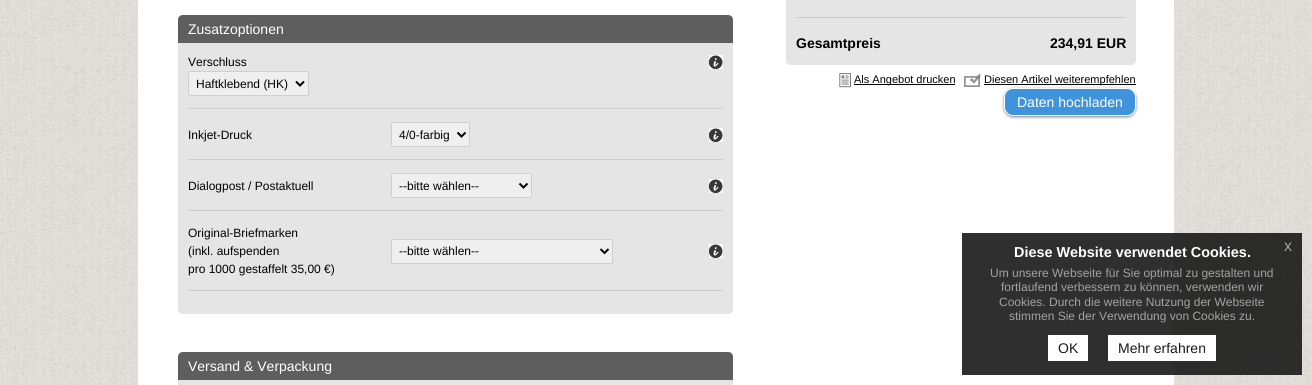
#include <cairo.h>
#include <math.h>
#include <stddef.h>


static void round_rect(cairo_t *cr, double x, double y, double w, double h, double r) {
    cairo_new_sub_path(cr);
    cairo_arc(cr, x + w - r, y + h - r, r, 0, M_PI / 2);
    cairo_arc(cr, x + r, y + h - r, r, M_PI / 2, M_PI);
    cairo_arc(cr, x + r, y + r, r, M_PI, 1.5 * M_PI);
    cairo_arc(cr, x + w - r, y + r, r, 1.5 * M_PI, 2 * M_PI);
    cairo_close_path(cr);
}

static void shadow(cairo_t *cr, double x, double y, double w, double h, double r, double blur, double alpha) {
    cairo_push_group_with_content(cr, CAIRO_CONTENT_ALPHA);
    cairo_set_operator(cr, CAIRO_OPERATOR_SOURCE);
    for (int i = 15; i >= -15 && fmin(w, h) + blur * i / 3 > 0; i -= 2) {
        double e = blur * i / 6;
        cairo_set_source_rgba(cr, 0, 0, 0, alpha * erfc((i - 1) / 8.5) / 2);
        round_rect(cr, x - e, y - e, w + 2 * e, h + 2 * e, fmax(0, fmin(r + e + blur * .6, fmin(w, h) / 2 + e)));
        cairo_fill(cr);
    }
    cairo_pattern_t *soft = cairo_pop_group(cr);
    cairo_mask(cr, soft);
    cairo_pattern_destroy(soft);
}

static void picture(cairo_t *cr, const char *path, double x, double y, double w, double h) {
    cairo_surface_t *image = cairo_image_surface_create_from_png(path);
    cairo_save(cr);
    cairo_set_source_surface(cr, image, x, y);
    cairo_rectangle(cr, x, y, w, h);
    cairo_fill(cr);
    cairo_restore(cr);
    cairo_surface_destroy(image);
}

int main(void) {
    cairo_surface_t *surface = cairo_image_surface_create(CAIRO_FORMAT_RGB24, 1312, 385);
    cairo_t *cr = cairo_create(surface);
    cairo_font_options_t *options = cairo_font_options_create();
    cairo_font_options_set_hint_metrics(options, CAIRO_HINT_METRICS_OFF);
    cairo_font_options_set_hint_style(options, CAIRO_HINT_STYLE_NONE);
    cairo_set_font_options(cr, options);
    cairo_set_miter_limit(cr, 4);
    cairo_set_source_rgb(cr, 1, 1, 1);
    cairo_paint(cr);
    picture(cr, "img1.png", 0, 0, 1312, 385);
    cairo_set_source_rgb(cr, 1, 1, 1);
    cairo_rectangle(cr, 138, 0, 1036, 385);
    cairo_fill(cr);
    cairo_set_source_rgb(cr, 0.369, 0.369, 0.369);
    cairo_new_path(cr);
    cairo_move_to(cr, 183, 15);
    cairo_line_to(cr, 728, 15);
    cairo_curve_to(cr, 731, 15, 733, 17, 733, 20);
    cairo_line_to(cr, 733, 43);
    cairo_line_to(cr, 178, 43);
    cairo_line_to(cr, 178, 20);
    cairo_curve_to(cr, 178, 17, 180, 15, 183, 15);
    cairo_close_path(cr);
    cairo_fill(cr);
    cairo_select_font_face(cr, "Liberation Sans", CAIRO_FONT_SLANT_NORMAL, CAIRO_FONT_WEIGHT_NORMAL);
    cairo_set_font_size(cr, 14);
    cairo_set_source_rgb(cr, 1, 1, 1);
    cairo_move_to(cr, 188, 34);
    cairo_show_text(cr, "Zusatzoptionen");
    cairo_set_source_rgb(cr, 0.898, 0.898, 0.898);
    cairo_new_path(cr);
    cairo_move_to(cr, 178, 43);
    cairo_line_to(cr, 733, 43);
    cairo_line_to(cr, 733, 309);
    cairo_curve_to(cr, 733, 312, 731, 314, 728, 314);
    cairo_line_to(cr, 183, 314);
    cairo_curve_to(cr, 180, 314, 178, 312, 178, 309);
    cairo_close_path(cr);
    cairo_fill(cr);
    cairo_set_font_size(cr, 12);
    cairo_set_source_rgb(cr, 0, 0, 0);
    cairo_move_to(cr, 188, 66);
    cairo_show_text(cr, "Verschluss");
    picture(cr, "img2.png", 709, 55, 14, 14);
    cairo_set_source_rgb(cr, 0.937, 0.937, 0.937);
    round_rect(cr, 188.5, 71.5, 120, 24, 1.5);
    cairo_fill_preserve(cr);
    cairo_set_source_rgb(cr, 0.812, 0.812, 0.812);
    cairo_set_line_width(cr, 1);
    cairo_stroke(cr);
    cairo_new_path(cr);
    cairo_move_to(cr, 296, 81.5);
    cairo_line_to(cr, 300, 85.5);
    cairo_line_to(cr, 304, 81.5);
    cairo_set_source_rgb(cr, 0, 0, 0);
    cairo_set_line_width(cr, 2);
    cairo_stroke(cr);
    cairo_move_to(cr, 196, 88);
    cairo_show_text(cr, "Haftklebend (HK)");
    cairo_set_source_rgb(cr, 0.8, 0.8, 0.8);
    cairo_rectangle(cr, 188, 108, 535, 1);
    cairo_fill(cr);
    cairo_set_source_rgb(cr, 0, 0, 0);
    cairo_move_to(cr, 188, 139);
    cairo_show_text(cr, "Inkjet-Druck");
    cairo_set_source_rgb(cr, 0.937, 0.937, 0.937);
    round_rect(cr, 391.5, 122.5, 78, 24, 1.5);
    cairo_fill_preserve(cr);
    cairo_set_source_rgb(cr, 0.812, 0.812, 0.812);
    cairo_set_line_width(cr, 1);
    cairo_stroke(cr);
    cairo_new_path(cr);
    cairo_move_to(cr, 457.5, 132.5);
    cairo_line_to(cr, 461.5, 136.5);
    cairo_line_to(cr, 465.5, 132.5);
    cairo_set_source_rgb(cr, 0, 0, 0);
    cairo_set_line_width(cr, 2);
    cairo_stroke(cr);
    cairo_move_to(cr, 399, 139);
    cairo_show_text(cr, "4/0-farbig");
    picture(cr, "img2.png", 709, 128, 14, 14);
    cairo_set_source_rgb(cr, 0.8, 0.8, 0.8);
    cairo_rectangle(cr, 188, 159, 535, 1);
    cairo_fill(cr);
    cairo_set_source_rgb(cr, 0, 0, 0);
    cairo_move_to(cr, 188, 190);
    cairo_show_text(cr, "Dialogpost / Postaktuell");
    cairo_set_source_rgb(cr, 0.937, 0.937, 0.937);
    round_rect(cr, 391.5, 173.5, 140, 24, 1.5);
    cairo_fill_preserve(cr);
    cairo_set_source_rgb(cr, 0.812, 0.812, 0.812);
    cairo_set_line_width(cr, 1);
    cairo_stroke(cr);
    cairo_new_path(cr);
    cairo_move_to(cr, 519.5, 183.5);
    cairo_line_to(cr, 523.5, 187.5);
    cairo_line_to(cr, 527.5, 183.5);
    cairo_set_source_rgb(cr, 0, 0, 0);
    cairo_set_line_width(cr, 2);
    cairo_stroke(cr);
    cairo_move_to(cr, 399, 190);
    cairo_show_text(cr, "--bitte wählen--");
    picture(cr, "img2.png", 709, 179, 14, 14);
    cairo_set_source_rgb(cr, 0.8, 0.8, 0.8);
    cairo_rectangle(cr, 188, 210, 535, 1);
    cairo_fill(cr);
    cairo_set_source_rgb(cr, 0, 0, 0);
    cairo_move_to(cr, 188, 237);
    cairo_show_text(cr, "Original-Briefmarken");
    cairo_move_to(cr, 188, 255);
    cairo_show_text(cr, "(inkl. aufspenden");
    cairo_move_to(cr, 188, 273);
    cairo_show_text(cr, "pro 1000 gestaffelt 35,00 €)");
    cairo_set_source_rgb(cr, 0.937, 0.937, 0.937);
    round_rect(cr, 391.5, 239.5, 221, 24, 1.5);
    cairo_fill_preserve(cr);
    cairo_set_source_rgb(cr, 0.812, 0.812, 0.812);
    cairo_set_line_width(cr, 1);
    cairo_stroke(cr);
    cairo_new_path(cr);
    cairo_move_to(cr, 600.5, 249);
    cairo_line_to(cr, 604.5, 253);
    cairo_line_to(cr, 608.5, 249);
    cairo_set_source_rgb(cr, 0, 0, 0);
    cairo_set_line_width(cr, 2);
    cairo_stroke(cr);
    cairo_move_to(cr, 399, 255);
    cairo_show_text(cr, "--bitte wählen--");
    picture(cr, "img2.png", 709, 244, 14, 14);
    cairo_set_source_rgb(cr, 0.8, 0.8, 0.8);
    cairo_rectangle(cr, 188, 290, 535, 1);
    cairo_fill(cr);
    cairo_set_source_rgb(cr, 0.369, 0.369, 0.369);
    cairo_new_path(cr);
    cairo_move_to(cr, 183, 352);
    cairo_line_to(cr, 728, 352);
    cairo_curve_to(cr, 731, 352, 733, 354, 733, 357);
    cairo_line_to(cr, 733, 380);
    cairo_line_to(cr, 178, 380);
    cairo_line_to(cr, 178, 357);
    cairo_curve_to(cr, 178, 354, 180, 352, 183, 352);
    cairo_close_path(cr);
    cairo_fill(cr);
    cairo_set_font_size(cr, 14);
    cairo_set_source_rgb(cr, 1, 1, 1);
    cairo_move_to(cr, 188, 371);
    cairo_show_text(cr, "Versand & Verpackung");
    cairo_set_source_rgb(cr, 0.898, 0.898, 0.898);
    cairo_rectangle(cr, 178, 380, 555, 5);
    cairo_fill(cr);
    cairo_new_path(cr);
    cairo_move_to(cr, 786, -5);
    cairo_line_to(cr, 1136, -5);
    cairo_line_to(cr, 1136, 60);
    cairo_curve_to(cr, 1136, 63, 1134, 65, 1131, 65);
    cairo_line_to(cr, 791, 65);
    cairo_curve_to(cr, 788, 65, 786, 63, 786, 60);
    cairo_close_path(cr);
    cairo_fill(cr);
    cairo_set_source_rgb(cr, 0.8, 0.8, 0.8);
    cairo_rectangle(cr, 796, 17, 330, 1);
    cairo_fill(cr);
    cairo_select_font_face(cr, "Liberation Sans", CAIRO_FONT_SLANT_NORMAL, CAIRO_FONT_WEIGHT_BOLD);
    cairo_set_source_rgb(cr, 0, 0, 0);
    cairo_move_to(cr, 796, 48);
    cairo_show_text(cr, "Gesamtpreis");
    cairo_move_to(cr, 1050, 48);
    cairo_show_text(cr, "234,91 EUR");
    picture(cr, "img3.png", 839, 73, 12, 15);
    cairo_rectangle(cr, 854, 84, 101, 1);
    cairo_fill(cr);
    cairo_select_font_face(cr, "Liberation Sans", CAIRO_FONT_SLANT_NORMAL, CAIRO_FONT_WEIGHT_NORMAL);
    cairo_set_font_size(cr, 11);
    cairo_move_to(cr, 854, 83);
    cairo_show_text(cr, "Als Angebot drucken");
    picture(cr, "img4.png", 964, 73, 17, 14);
    cairo_rectangle(cr, 984, 84, 152, 1);
    cairo_fill(cr);
    cairo_move_to(cr, 984, 83);
    cairo_show_text(cr, "Diesen Artikel weiterempfehlen");
    cairo_set_source_rgb(cr, 0, 0, 0);
    shadow(cr, 1004, 89, 132, 28, 9, 1.5, 0.5);
    cairo_set_source_rgb(cr, 0.247, 0.576, 0.867);
    round_rect(cr, 1004.5, 88.5, 131, 27, 8.5);
    cairo_fill_preserve(cr);
    cairo_set_source_rgb(cr, 1, 1, 1);
    cairo_set_line_width(cr, 1);
    cairo_stroke(cr);
    cairo_set_font_size(cr, 14);
    cairo_move_to(cr, 1017, 107);
    cairo_show_text(cr, "Daten hochladen");
    cairo_set_source_rgba(cr, 0.098, 0.098, 0.098, 0.9);
    cairo_rectangle(cr, 962, 233, 340, 142);
    cairo_fill(cr);
    cairo_select_font_face(cr, "Liberation Sans", CAIRO_FONT_SLANT_NORMAL, CAIRO_FONT_WEIGHT_BOLD);
    cairo_set_font_size(cr, 14.4);
    cairo_set_source_rgb(cr, 1, 1, 1);
    cairo_move_to(cr, 1014, 257);
    cairo_show_text(cr, "Diese Website verwendet Cookies.");
    cairo_select_font_face(cr, "Liberation Sans", CAIRO_FONT_SLANT_NORMAL, CAIRO_FONT_WEIGHT_NORMAL);
    cairo_set_font_size(cr, 16);
    cairo_set_source_rgb(cr, 0.635, 0.635, 0.635);
    cairo_move_to(cr, 1284, 251);
    cairo_show_text(cr, "x");
    cairo_set_font_size(cr, 12);
    cairo_move_to(cr, 990, 277);
    cairo_show_text(cr, "Um unsere Webseite für Sie optimal zu gestalten und");
    cairo_move_to(cr, 1001, 291);
    cairo_show_text(cr, "fortlaufend verbessern zu können, verwenden wir");
    cairo_move_to(cr, 999, 306);
    cairo_show_text(cr, "Cookies. Durch die weitere Nutzung der Webseite");
    cairo_move_to(cr, 1009, 320);
    cairo_show_text(cr, "stimmen Sie der Verwendung von Cookies zu.");
    cairo_set_source_rgb(cr, 1, 1, 1);
    cairo_rectangle(cr, 1048, 335, 40, 26);
    cairo_fill(cr);
    cairo_set_font_size(cr, 14);
    cairo_set_source_rgb(cr, 0.098, 0.098, 0.098);
    cairo_move_to(cr, 1058, 353);
    cairo_show_text(cr, "OK");
    cairo_set_source_rgb(cr, 1, 1, 1);
    cairo_rectangle(cr, 1108, 335, 108, 26);
    cairo_fill(cr);
    cairo_set_source_rgb(cr, 0.098, 0.098, 0.098);
    cairo_move_to(cr, 1118, 353);
    cairo_show_text(cr, "Mehr erfahren");
    cairo_surface_write_to_png(surface, "page.png");
    cairo_font_options_destroy(options);
    cairo_destroy(cr);
    cairo_surface_destroy(surface);
    return 0;
}
